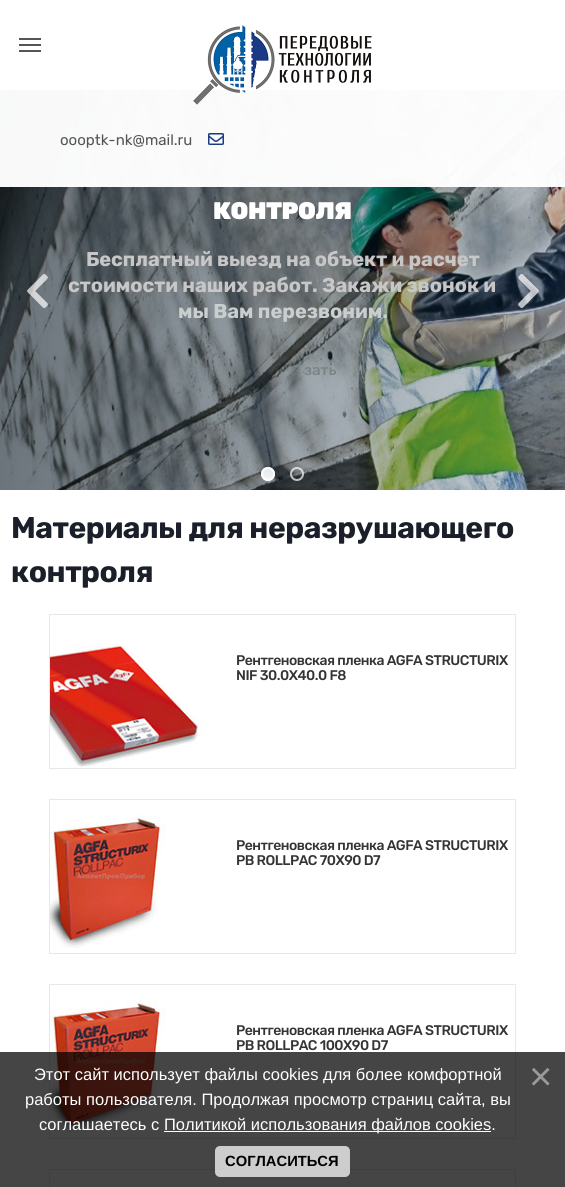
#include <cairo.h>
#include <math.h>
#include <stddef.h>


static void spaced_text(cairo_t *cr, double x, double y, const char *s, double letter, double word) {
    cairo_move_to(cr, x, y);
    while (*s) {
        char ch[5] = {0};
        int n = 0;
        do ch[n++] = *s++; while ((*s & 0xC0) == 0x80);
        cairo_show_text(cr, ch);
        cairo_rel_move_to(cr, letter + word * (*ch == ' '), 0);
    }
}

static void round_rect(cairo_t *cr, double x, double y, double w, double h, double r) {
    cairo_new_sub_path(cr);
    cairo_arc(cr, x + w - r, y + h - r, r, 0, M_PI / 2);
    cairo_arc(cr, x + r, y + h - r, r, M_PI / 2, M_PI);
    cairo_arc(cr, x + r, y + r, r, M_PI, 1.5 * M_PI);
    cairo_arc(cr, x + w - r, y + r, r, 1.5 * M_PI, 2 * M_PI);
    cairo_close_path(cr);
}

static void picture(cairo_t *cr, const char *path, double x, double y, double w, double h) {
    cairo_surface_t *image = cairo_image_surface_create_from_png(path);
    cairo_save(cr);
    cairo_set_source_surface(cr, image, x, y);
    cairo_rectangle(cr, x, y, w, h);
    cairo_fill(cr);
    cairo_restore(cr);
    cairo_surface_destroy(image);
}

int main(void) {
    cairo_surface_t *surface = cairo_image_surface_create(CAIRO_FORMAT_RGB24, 565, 1187);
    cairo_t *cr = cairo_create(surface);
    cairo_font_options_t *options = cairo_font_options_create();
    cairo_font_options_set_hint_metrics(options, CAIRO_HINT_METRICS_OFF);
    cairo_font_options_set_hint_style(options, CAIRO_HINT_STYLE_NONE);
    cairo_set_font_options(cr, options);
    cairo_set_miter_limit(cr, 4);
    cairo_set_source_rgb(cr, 1, 1, 1);
    cairo_paint(cr);
    cairo_set_source_rgb(cr, 0.333, 0.333, 0.333);
    cairo_rectangle(cr, 19, 44, 22, 2);
    cairo_fill(cr);
    cairo_rectangle(cr, 19, 38, 22, 2);
    cairo_fill(cr);
    cairo_rectangle(cr, 19, 50, 22, 2);
    cairo_fill(cr);
    picture(cr, "img3.png", 0, 90, 565, 400);
    cairo_set_source_rgba(cr, 1, 1, 1, 0.97);
    cairo_rectangle(cr, 0, 90, 565, 97);
    cairo_fill(cr);
    picture(cr, "img1.png", 193, 25, 179, 80);
    cairo_select_font_face(cr, "Rubik", CAIRO_FONT_SLANT_NORMAL, CAIRO_FONT_WEIGHT_NORMAL);
    cairo_set_font_size(cr, 15);
    cairo_set_source_rgb(cr, 0.333, 0.333, 0.333);
    cairo_move_to(cr, 60, 145);
    cairo_show_text(cr, "oooptk-nk@mail.ru");
    picture(cr, "img2.png", 208, 133, 16, 12);
    cairo_select_font_face(cr, "Rubik Black", CAIRO_FONT_SLANT_NORMAL, CAIRO_FONT_WEIGHT_NORMAL);
    cairo_set_font_size(cr, 24);
    cairo_set_source_rgb(cr, 1, 1, 1);
    spaced_text(cr, 213, 219, "КОНТРОЛЯ", -0.5, 0);
    cairo_select_font_face(cr, "Rubik", CAIRO_FONT_SLANT_NORMAL, CAIRO_FONT_WEIGHT_BOLD);
    cairo_set_font_size(cr, 20);
    cairo_set_source_rgb(cr, 0.78, 0.78, 0.784);
    cairo_move_to(cr, 86, 266);
    cairo_show_text(cr, "Бесплатный выезд на объект и расчет");
    cairo_move_to(cr, 68, 292);
    cairo_show_text(cr, "стоимости наших работ. Закажи звонок и");
    cairo_set_source_rgb(cr, 0.796, 0.808, 0.808);
    cairo_move_to(cr, 178, 318);
    cairo_show_text(cr, "мы Вам перезвоним.");
    cairo_select_font_face(cr, "Rubik Medium", CAIRO_FONT_SLANT_NORMAL, CAIRO_FONT_WEIGHT_NORMAL);
    cairo_set_font_size(cr, 15);
    cairo_set_source_rgb(cr, 0.486, 0.514, 0.529);
    cairo_move_to(cr, 304, 375);
    cairo_show_text(cr, "зать");
    picture(cr, "img4.png", 27, 274, 21, 34);
    picture(cr, "img5.png", 518, 274, 21, 34);
    cairo_set_source_rgba(cr, 1, 1, 1, 0.9);
    cairo_arc(cr, 268, 474, 7, 0, 2 * M_PI);
    cairo_fill(cr);
    cairo_arc(cr, 268, 474, 6, 0, 2 * M_PI);
    cairo_stroke(cr);
    cairo_arc(cr, 297, 474, 6, 0, 2 * M_PI);
    cairo_set_source_rgba(cr, 1, 1, 1, 0.7);
    cairo_stroke(cr);
    cairo_select_font_face(cr, "Rubik", CAIRO_FONT_SLANT_NORMAL, CAIRO_FONT_WEIGHT_BOLD);
    cairo_set_font_size(cr, 30);
    cairo_set_source_rgb(cr, 0.106, 0.122, 0.165);
    spaced_text(cr, 11, 538, "Материалы для неразрушающего", -0.5, 0);
    spaced_text(cr, 11, 582, "контроля", -0.5, 0);
    cairo_rectangle(cr, 49.5, 614.5, 466, 154);
    cairo_set_source_rgb(cr, 0.91, 0.91, 0.91);
    cairo_set_line_width(cr, 1);
    cairo_stroke(cr);
    picture(cr, "img6.png", 50, 645, 154, 123);
    cairo_select_font_face(cr, "Rubik Medium", CAIRO_FONT_SLANT_NORMAL, CAIRO_FONT_WEIGHT_NORMAL);
    cairo_set_font_size(cr, 14);
    cairo_set_source_rgb(cr, 0.204, 0.204, 0.204);
    spaced_text(cr, 236, 665, "Рентгеновская пленка AGFA STRUCTURIX", -0.5, 0);
    spaced_text(cr, 236, 680, "NIF 30.0Х40.0 F8", -0.5, 0);
    cairo_rectangle(cr, 49.5, 799.5, 466, 154);
    cairo_set_source_rgb(cr, 0.91, 0.91, 0.91);
    cairo_stroke(cr);
    picture(cr, "img7.png", 50, 815, 116, 133);
    cairo_set_source_rgb(cr, 0.204, 0.204, 0.204);
    spaced_text(cr, 236, 850, "Рентгеновская пленка AGFA STRUCTURIX", -0.5, 0);
    spaced_text(cr, 236, 865, "PB ROLLPAC 70Х90 D7", -0.5, 0);
    cairo_rectangle(cr, 49.5, 984.5, 466, 154);
    cairo_set_source_rgb(cr, 0.91, 0.91, 0.91);
    cairo_stroke(cr);
    picture(cr, "img8.png", 50, 1000, 116, 133);
    cairo_set_source_rgb(cr, 0.204, 0.204, 0.204);
    spaced_text(cr, 236, 1035, "Рентгеновская пленка AGFA STRUCTURIX", -0.5, 0);
    spaced_text(cr, 236, 1050, "PB ROLLPAC 100Х90 D7", -0.5, 0);
    cairo_rectangle(cr, 49.5, 1169.5, 466, 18);
    cairo_set_source_rgb(cr, 0.91, 0.91, 0.91);
    cairo_stroke(cr);
    cairo_set_source_rgba(cr, 0, 0, 0, 0.73);
    cairo_rectangle(cr, 0, 1052, 565, 135);
    cairo_fill(cr);
    cairo_select_font_face(cr, "Liberation Sans", CAIRO_FONT_SLANT_NORMAL, CAIRO_FONT_WEIGHT_NORMAL);
    cairo_set_font_size(cr, 16.5);
    cairo_set_source_rgb(cr, 1, 1, 1);
    cairo_move_to(cr, 34, 1080);
    cairo_show_text(cr, "Этот сайт использует файлы cookies для более комфортной");
    cairo_move_to(cr, 25, 1105);
    cairo_show_text(cr, "работы пользователя. Продолжая просмотр страниц сайта, вы");
    cairo_move_to(cr, 39, 1130);
    cairo_show_text(cr, "соглашаетесь с");
    cairo_rectangle(cr, 164, 1131, 327, 1);
    cairo_fill(cr);
    cairo_move_to(cr, 164, 1130);
    cairo_show_text(cr, "Политикой использования файлов cookies.");
    cairo_set_font_size(cr, 40);
    cairo_set_source_rgb(cr, 0.6, 0.6, 0.6);
    cairo_move_to(cr, 529, 1090);
    cairo_show_text(cr, "×");
    cairo_set_source_rgba(cr, 1, 1, 1, 0.73);
    round_rect(cr, 215, 1146, 135, 31, 5);
    cairo_fill(cr);
    cairo_select_font_face(cr, "Liberation Sans", CAIRO_FONT_SLANT_NORMAL, CAIRO_FONT_WEIGHT_BOLD);
    cairo_set_font_size(cr, 14.75);
    cairo_set_source_rgb(cr, 0, 0, 0);
    cairo_move_to(cr, 225, 1166);
    cairo_show_text(cr, "СОГЛАСИТЬСЯ");
    cairo_surface_write_to_png(surface, "page.png");
    cairo_font_options_destroy(options);
    cairo_destroy(cr);
    cairo_surface_destroy(surface);
    return 0;
}
